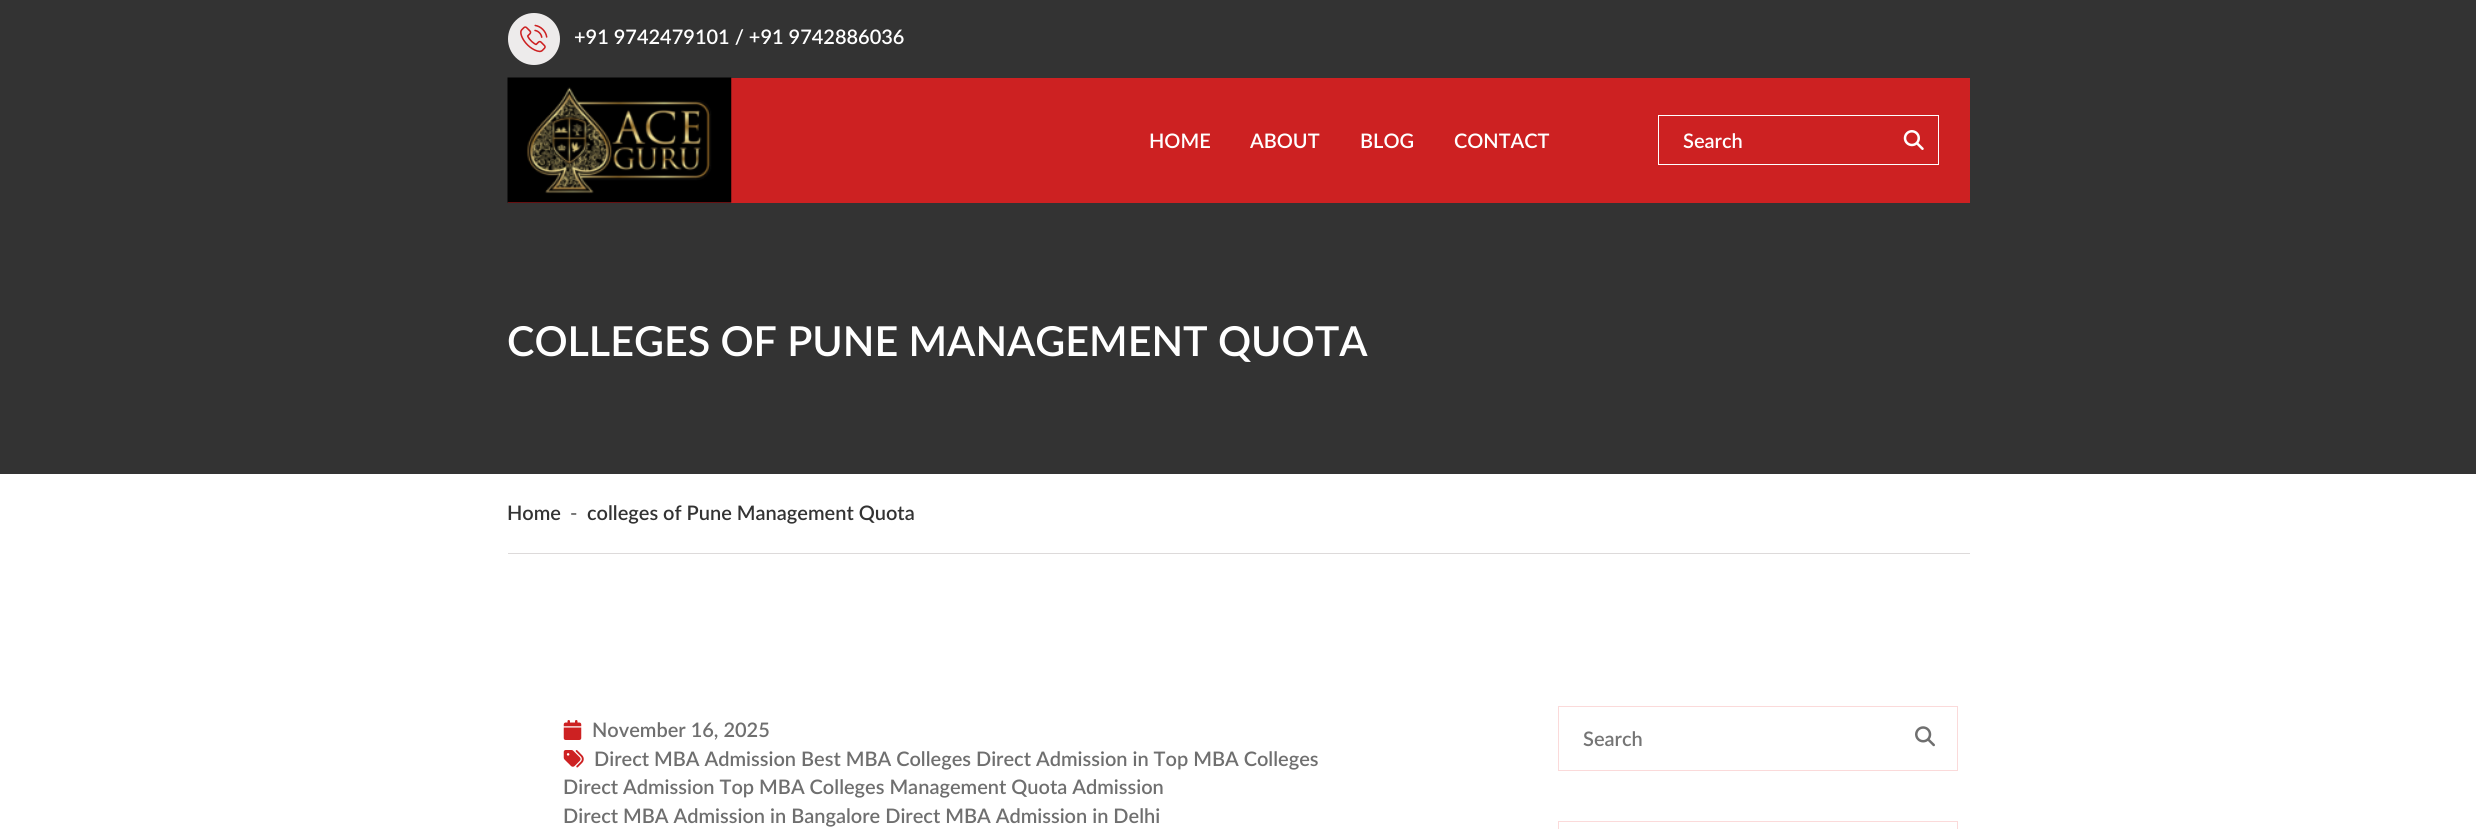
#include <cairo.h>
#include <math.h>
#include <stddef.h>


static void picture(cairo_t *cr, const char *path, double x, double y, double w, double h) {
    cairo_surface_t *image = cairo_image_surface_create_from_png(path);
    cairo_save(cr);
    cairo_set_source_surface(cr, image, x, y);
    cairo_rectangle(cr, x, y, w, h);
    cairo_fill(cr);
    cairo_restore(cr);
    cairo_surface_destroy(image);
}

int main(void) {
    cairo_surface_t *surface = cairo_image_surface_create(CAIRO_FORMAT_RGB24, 2476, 829);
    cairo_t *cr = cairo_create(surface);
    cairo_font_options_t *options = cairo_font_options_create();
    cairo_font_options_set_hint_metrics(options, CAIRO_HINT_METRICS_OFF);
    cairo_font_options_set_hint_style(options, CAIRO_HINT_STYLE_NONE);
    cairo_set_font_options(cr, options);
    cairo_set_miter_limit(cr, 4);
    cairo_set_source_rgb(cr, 1, 1, 1);
    cairo_paint(cr);
    cairo_set_source_rgb(cr, 0.2, 0.2, 0.2);
    cairo_rectangle(cr, 0, 0, 2476, 474);
    cairo_fill(cr);
    cairo_set_source_rgb(cr, 0.929, 0.918, 0.918);
    cairo_arc(cr, 534, 39, 26, 0, 2 * M_PI);
    cairo_fill(cr);
    picture(cr, "img1.png", 520, 24, 28, 29);
    cairo_select_font_face(cr, "Lato SemiBold", CAIRO_FONT_SLANT_NORMAL, CAIRO_FONT_WEIGHT_NORMAL);
    cairo_set_font_size(cr, 20);
    cairo_set_source_rgb(cr, 1, 1, 1);
    cairo_move_to(cr, 574, 44);
    cairo_show_text(cr, "+91 9742479101 / +91 9742886036");
    cairo_set_source_rgb(cr, 0.804, 0.129, 0.133);
    cairo_rectangle(cr, 508, 78, 1462, 125);
    cairo_fill(cr);
    picture(cr, "img2.png", 507, 77, 225, 126);
    cairo_set_source_rgb(cr, 1, 1, 1);
    cairo_move_to(cr, 1149, 148);
    cairo_show_text(cr, "HOME");
    cairo_move_to(cr, 1250, 148);
    cairo_show_text(cr, "ABOUT");
    cairo_move_to(cr, 1360, 148);
    cairo_show_text(cr, "BLOG");
    cairo_move_to(cr, 1454, 148);
    cairo_show_text(cr, "CONTACT");
    cairo_rectangle(cr, 1658.5, 115.5, 280, 49);
    cairo_set_line_width(cr, 1);
    cairo_stroke(cr);
    cairo_move_to(cr, 1683, 148);
    cairo_show_text(cr, "Search");
    picture(cr, "img3.png", 1903, 130, 21, 20);
    cairo_set_font_size(cr, 41.25);
    cairo_move_to(cr, 507, 356);
    cairo_show_text(cr, "COLLEGES OF PUNE MANAGEMENT QUOTA");
    cairo_set_source_rgb(cr, 0.867, 0.855, 0.855);
    cairo_rectangle(cr, 508, 553, 1462, 1);
    cairo_fill(cr);
    cairo_set_font_size(cr, 20);
    cairo_set_source_rgb(cr, 0.2, 0.2, 0.2);
    cairo_move_to(cr, 507, 520);
    cairo_show_text(cr, "Home");
    cairo_set_source_rgb(cr, 0.435, 0.435, 0.435);
    cairo_move_to(cr, 570, 520);
    cairo_show_text(cr, "-");
    cairo_set_source_rgb(cr, 0.2, 0.2, 0.2);
    cairo_move_to(cr, 587, 520);
    cairo_show_text(cr, "colleges of Pune Management Quota");
    picture(cr, "img4.png", 563, 720, 19, 20);
    cairo_set_source_rgb(cr, 0.435, 0.435, 0.435);
    cairo_move_to(cr, 592, 737);
    cairo_show_text(cr, "November 16, 2025");
    picture(cr, "img5.png", 563, 750, 21, 18);
    cairo_move_to(cr, 594, 766);
    cairo_show_text(cr, "Direct MBA Admission Best MBA Colleges Direct Admission in Top MBA Colleges");
    cairo_move_to(cr, 563, 794);
    cairo_show_text(cr, "Direct Admission Top MBA Colleges Management Quota Admission");
    cairo_move_to(cr, 563, 823);
    cairo_show_text(cr, "Direct MBA Admission in Bangalore Direct MBA Admission in Delhi");
    cairo_rectangle(cr, 1558.5, 706.5, 399, 64);
    cairo_set_source_rgb(cr, 0.984, 0.855, 0.855);
    cairo_stroke(cr);
    cairo_set_source_rgb(cr, 0.459, 0.459, 0.459);
    cairo_move_to(cr, 1583, 746);
    cairo_show_text(cr, "Search");
    picture(cr, "img6.png", 1915, 726, 20, 21);
    cairo_rectangle(cr, 1558.5, 821.5, 399, 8);
    cairo_set_source_rgb(cr, 0.984, 0.855, 0.855);
    cairo_stroke(cr);
    cairo_surface_write_to_png(surface, "page.png");
    cairo_font_options_destroy(options);
    cairo_destroy(cr);
    cairo_surface_destroy(surface);
    return 0;
}
